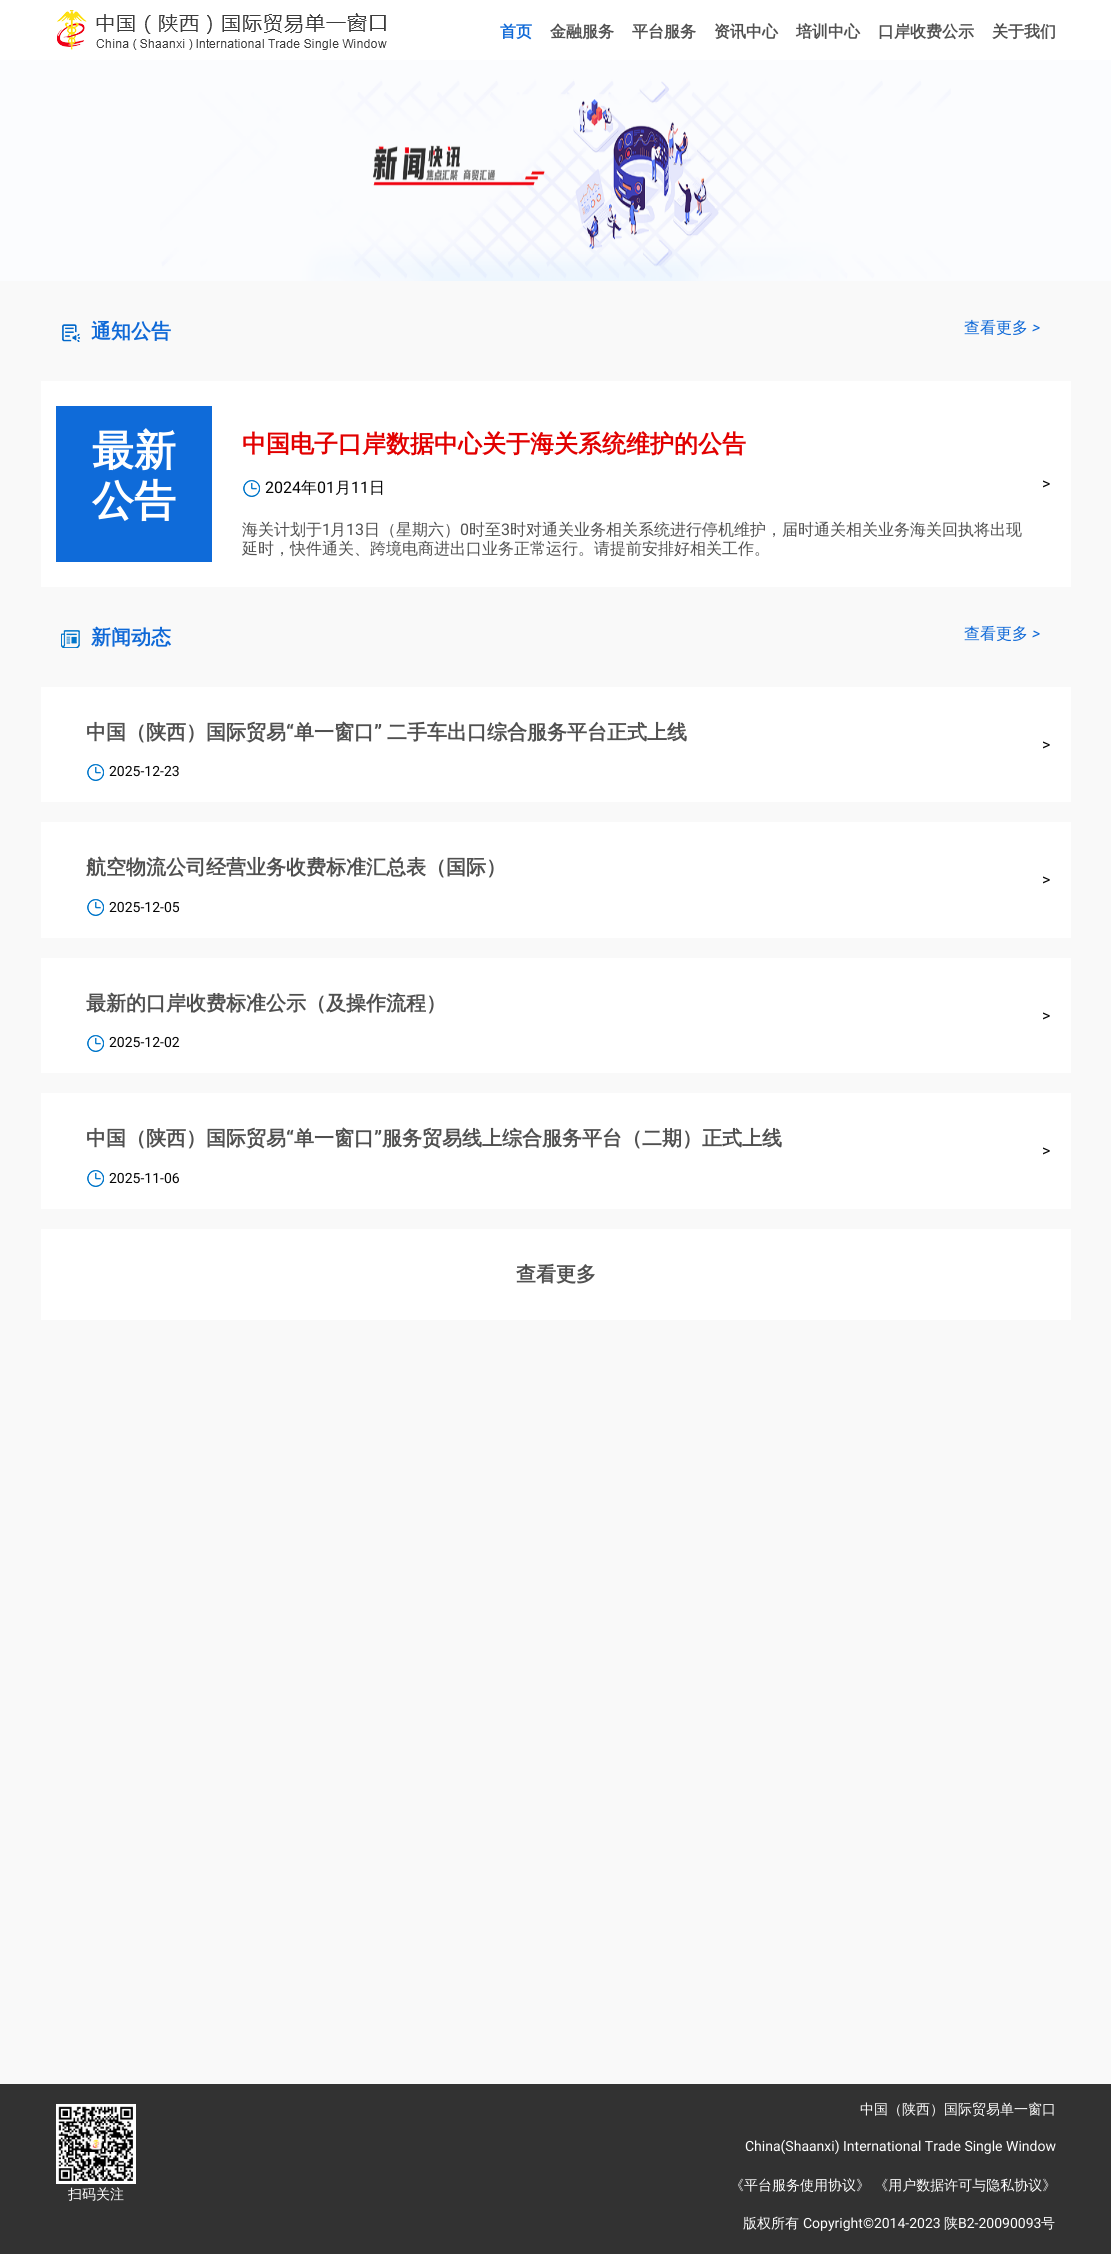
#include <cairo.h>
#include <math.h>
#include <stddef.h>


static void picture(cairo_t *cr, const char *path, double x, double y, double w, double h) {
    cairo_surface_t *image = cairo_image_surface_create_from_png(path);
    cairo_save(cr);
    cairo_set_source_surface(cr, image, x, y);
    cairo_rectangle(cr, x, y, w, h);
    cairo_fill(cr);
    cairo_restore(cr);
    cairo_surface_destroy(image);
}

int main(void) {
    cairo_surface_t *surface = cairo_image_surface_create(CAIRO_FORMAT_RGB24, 1111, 2254);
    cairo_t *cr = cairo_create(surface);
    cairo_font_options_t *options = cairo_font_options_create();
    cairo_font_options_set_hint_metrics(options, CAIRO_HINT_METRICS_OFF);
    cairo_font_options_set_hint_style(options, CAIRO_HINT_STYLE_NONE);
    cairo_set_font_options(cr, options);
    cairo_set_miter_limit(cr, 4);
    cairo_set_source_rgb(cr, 0.976, 0.976, 0.976);
    cairo_paint(cr);
    cairo_set_source_rgb(cr, 1, 1, 1);
    cairo_rectangle(cr, 0, 0, 1111, 60);
    cairo_fill(cr);
    picture(cr, "img1.png", 57, 10, 330, 40);
    cairo_select_font_face(cr, "WenQuanYi Zen Hei", CAIRO_FONT_SLANT_NORMAL, CAIRO_FONT_WEIGHT_BOLD);
    cairo_set_font_size(cr, 16);
    cairo_set_source_rgb(cr, 0.059, 0.412, 0.843);
    cairo_move_to(cr, 500, 37);
    cairo_show_text(cr, "首页");
    cairo_set_source_rgb(cr, 0.314, 0.314, 0.314);
    cairo_move_to(cr, 550, 37);
    cairo_show_text(cr, "金融服务");
    cairo_move_to(cr, 632, 37);
    cairo_show_text(cr, "平台服务");
    cairo_move_to(cr, 714, 37);
    cairo_show_text(cr, "资讯中心");
    cairo_move_to(cr, 796, 37);
    cairo_show_text(cr, "培训中心");
    cairo_move_to(cr, 878, 37);
    cairo_show_text(cr, "口岸收费公示");
    cairo_move_to(cr, 992, 37);
    cairo_show_text(cr, "关于我们");
    picture(cr, "img2.png", 0, 60, 1111, 221);
    picture(cr, "img3.png", 62, 324, 18, 18);
    cairo_set_font_size(cr, 20);
    cairo_set_source_rgb(cr, 0.059, 0.412, 0.843);
    cairo_move_to(cr, 91, 338);
    cairo_show_text(cr, "通知公告");
    cairo_select_font_face(cr, "WenQuanYi Zen Hei Medium", CAIRO_FONT_SLANT_NORMAL, CAIRO_FONT_WEIGHT_NORMAL);
    cairo_set_font_size(cr, 16);
    cairo_move_to(cr, 964, 333);
    cairo_show_text(cr, "查看更多");
    cairo_select_font_face(cr, "Roboto", CAIRO_FONT_SLANT_ITALIC, CAIRO_FONT_WEIGHT_NORMAL);
    cairo_move_to(cr, 1032, 333);
    cairo_show_text(cr, ">");
    cairo_set_source_rgb(cr, 1, 1, 1);
    cairo_rectangle(cr, 41, 381, 1030, 206);
    cairo_fill(cr);
    cairo_set_source_rgb(cr, 0.059, 0.42, 0.851);
    cairo_rectangle(cr, 56, 406, 156, 156);
    cairo_fill(cr);
    cairo_select_font_face(cr, "WenQuanYi Zen Hei", CAIRO_FONT_SLANT_NORMAL, CAIRO_FONT_WEIGHT_BOLD);
    cairo_set_font_size(cr, 42);
    cairo_set_source_rgb(cr, 1, 1, 1);
    cairo_move_to(cr, 92, 465);
    cairo_show_text(cr, "最新");
    cairo_move_to(cr, 92, 515);
    cairo_show_text(cr, "公告");
    cairo_set_font_size(cr, 24);
    cairo_set_source_rgb(cr, 0.886, 0, 0);
    cairo_move_to(cr, 242, 452);
    cairo_show_text(cr, "中国电子口岸数据中心关于海关系统维护的公告");
    picture(cr, "img4.png", 243, 480, 17, 17);
    cairo_select_font_face(cr, "Roboto", CAIRO_FONT_SLANT_NORMAL, CAIRO_FONT_WEIGHT_NORMAL);
    cairo_set_font_size(cr, 16);
    cairo_set_source_rgb(cr, 0.02, 0.02, 0.02);
    cairo_move_to(cr, 265, 493);
    cairo_show_text(cr, "2024");
    cairo_select_font_face(cr, "WenQuanYi Zen Hei Medium", CAIRO_FONT_SLANT_NORMAL, CAIRO_FONT_WEIGHT_NORMAL);
    cairo_move_to(cr, 301, 493);
    cairo_show_text(cr, "年");
    cairo_select_font_face(cr, "Roboto", CAIRO_FONT_SLANT_NORMAL, CAIRO_FONT_WEIGHT_NORMAL);
    cairo_move_to(cr, 317, 493);
    cairo_show_text(cr, "01");
    cairo_select_font_face(cr, "WenQuanYi Zen Hei Medium", CAIRO_FONT_SLANT_NORMAL, CAIRO_FONT_WEIGHT_NORMAL);
    cairo_move_to(cr, 335, 493);
    cairo_show_text(cr, "月");
    cairo_select_font_face(cr, "Roboto", CAIRO_FONT_SLANT_NORMAL, CAIRO_FONT_WEIGHT_NORMAL);
    cairo_move_to(cr, 351, 493);
    cairo_show_text(cr, "11");
    cairo_select_font_face(cr, "WenQuanYi Zen Hei Medium", CAIRO_FONT_SLANT_NORMAL, CAIRO_FONT_WEIGHT_NORMAL);
    cairo_move_to(cr, 369, 493);
    cairo_show_text(cr, "日");
    cairo_set_source_rgb(cr, 0.314, 0.314, 0.314);
    cairo_move_to(cr, 242, 535);
    cairo_show_text(cr, "海关计划于");
    cairo_select_font_face(cr, "Roboto", CAIRO_FONT_SLANT_NORMAL, CAIRO_FONT_WEIGHT_NORMAL);
    cairo_move_to(cr, 322, 535);
    cairo_show_text(cr, "1");
    cairo_select_font_face(cr, "WenQuanYi Zen Hei Medium", CAIRO_FONT_SLANT_NORMAL, CAIRO_FONT_WEIGHT_NORMAL);
    cairo_move_to(cr, 330, 535);
    cairo_show_text(cr, "月");
    cairo_select_font_face(cr, "Roboto", CAIRO_FONT_SLANT_NORMAL, CAIRO_FONT_WEIGHT_NORMAL);
    cairo_move_to(cr, 346, 535);
    cairo_show_text(cr, "13");
    cairo_select_font_face(cr, "WenQuanYi Zen Hei Medium", CAIRO_FONT_SLANT_NORMAL, CAIRO_FONT_WEIGHT_NORMAL);
    cairo_move_to(cr, 364, 535);
    cairo_show_text(cr, "日（星期六）");
    cairo_select_font_face(cr, "Roboto", CAIRO_FONT_SLANT_NORMAL, CAIRO_FONT_WEIGHT_NORMAL);
    cairo_move_to(cr, 460, 535);
    cairo_show_text(cr, "0");
    cairo_select_font_face(cr, "WenQuanYi Zen Hei Medium", CAIRO_FONT_SLANT_NORMAL, CAIRO_FONT_WEIGHT_NORMAL);
    cairo_move_to(cr, 469, 535);
    cairo_show_text(cr, "时至");
    cairo_select_font_face(cr, "Roboto", CAIRO_FONT_SLANT_NORMAL, CAIRO_FONT_WEIGHT_NORMAL);
    cairo_move_to(cr, 501, 535);
    cairo_show_text(cr, "3");
    cairo_select_font_face(cr, "WenQuanYi Zen Hei Medium", CAIRO_FONT_SLANT_NORMAL, CAIRO_FONT_WEIGHT_NORMAL);
    cairo_move_to(cr, 510, 535);
    cairo_show_text(cr, "时对通关业务相关系统进行停机维护，届时通关相关业务海关回执将出现");
    cairo_move_to(cr, 242, 554);
    cairo_show_text(cr, "延时，快件通关、跨境电商进出口业务正常运行。请提前安排好相关工作。");
    cairo_select_font_face(cr, "Roboto", CAIRO_FONT_SLANT_NORMAL, CAIRO_FONT_WEIGHT_NORMAL);
    cairo_set_source_rgb(cr, 0.02, 0.02, 0.02);
    cairo_move_to(cr, 1042, 489);
    cairo_show_text(cr, ">");
    picture(cr, "img5.png", 61, 630, 19, 18);
    cairo_select_font_face(cr, "WenQuanYi Zen Hei", CAIRO_FONT_SLANT_NORMAL, CAIRO_FONT_WEIGHT_BOLD);
    cairo_set_font_size(cr, 20);
    cairo_set_source_rgb(cr, 0.059, 0.412, 0.843);
    cairo_move_to(cr, 91, 644);
    cairo_show_text(cr, "新闻动态");
    cairo_select_font_face(cr, "WenQuanYi Zen Hei Medium", CAIRO_FONT_SLANT_NORMAL, CAIRO_FONT_WEIGHT_NORMAL);
    cairo_set_font_size(cr, 16);
    cairo_move_to(cr, 964, 639);
    cairo_show_text(cr, "查看更多");
    cairo_select_font_face(cr, "Roboto", CAIRO_FONT_SLANT_ITALIC, CAIRO_FONT_WEIGHT_NORMAL);
    cairo_move_to(cr, 1032, 639);
    cairo_show_text(cr, ">");
    cairo_set_source_rgb(cr, 1, 1, 1);
    cairo_rectangle(cr, 41, 687, 1030, 115);
    cairo_fill(cr);
    cairo_select_font_face(cr, "WenQuanYi Zen Hei", CAIRO_FONT_SLANT_NORMAL, CAIRO_FONT_WEIGHT_BOLD);
    cairo_set_font_size(cr, 20);
    cairo_set_source_rgb(cr, 0.314, 0.314, 0.314);
    cairo_move_to(cr, 86, 739);
    cairo_show_text(cr, "中国（陕西）国际贸易");
    cairo_select_font_face(cr, "Roboto", CAIRO_FONT_SLANT_NORMAL, CAIRO_FONT_WEIGHT_BOLD);
    cairo_move_to(cr, 286, 739);
    cairo_show_text(cr, "“");
    cairo_select_font_face(cr, "WenQuanYi Zen Hei", CAIRO_FONT_SLANT_NORMAL, CAIRO_FONT_WEIGHT_BOLD);
    cairo_move_to(cr, 294, 739);
    cairo_show_text(cr, "单一窗口");
    cairo_select_font_face(cr, "Roboto", CAIRO_FONT_SLANT_NORMAL, CAIRO_FONT_WEIGHT_BOLD);
    cairo_move_to(cr, 374, 739);
    cairo_show_text(cr, "”");
    cairo_select_font_face(cr, "WenQuanYi Zen Hei", CAIRO_FONT_SLANT_NORMAL, CAIRO_FONT_WEIGHT_BOLD);
    cairo_move_to(cr, 387, 739);
    cairo_show_text(cr, "二手车出口综合服务平台正式上线");
    picture(cr, "img4.png", 87, 764, 17, 17);
    cairo_select_font_face(cr, "Roboto", CAIRO_FONT_SLANT_NORMAL, CAIRO_FONT_WEIGHT_NORMAL);
    cairo_set_font_size(cr, 14);
    cairo_set_source_rgb(cr, 0.02, 0.02, 0.02);
    cairo_move_to(cr, 109, 776);
    cairo_show_text(cr, "2025-12-23");
    cairo_set_font_size(cr, 16);
    cairo_move_to(cr, 1042, 750);
    cairo_show_text(cr, ">");
    cairo_set_source_rgb(cr, 1, 1, 1);
    cairo_rectangle(cr, 41, 822, 1030, 116);
    cairo_fill(cr);
    cairo_select_font_face(cr, "WenQuanYi Zen Hei", CAIRO_FONT_SLANT_NORMAL, CAIRO_FONT_WEIGHT_BOLD);
    cairo_set_font_size(cr, 20);
    cairo_set_source_rgb(cr, 0.314, 0.314, 0.314);
    cairo_move_to(cr, 86, 874);
    cairo_show_text(cr, "航空物流公司经营业务收费标准汇总表（国际）");
    picture(cr, "img4.png", 87, 899, 17, 17);
    cairo_select_font_face(cr, "Roboto", CAIRO_FONT_SLANT_NORMAL, CAIRO_FONT_WEIGHT_NORMAL);
    cairo_set_font_size(cr, 14);
    cairo_set_source_rgb(cr, 0.02, 0.02, 0.02);
    cairo_move_to(cr, 109, 912);
    cairo_show_text(cr, "2025-12-05");
    cairo_set_font_size(cr, 16);
    cairo_move_to(cr, 1042, 885);
    cairo_show_text(cr, ">");
    cairo_set_source_rgb(cr, 1, 1, 1);
    cairo_rectangle(cr, 41, 958, 1030, 115);
    cairo_fill(cr);
    cairo_select_font_face(cr, "WenQuanYi Zen Hei", CAIRO_FONT_SLANT_NORMAL, CAIRO_FONT_WEIGHT_BOLD);
    cairo_set_font_size(cr, 20);
    cairo_set_source_rgb(cr, 0.314, 0.314, 0.314);
    cairo_move_to(cr, 86, 1010);
    cairo_show_text(cr, "最新的口岸收费标准公示（及操作流程）");
    picture(cr, "img4.png", 87, 1035, 17, 17);
    cairo_select_font_face(cr, "Roboto", CAIRO_FONT_SLANT_NORMAL, CAIRO_FONT_WEIGHT_NORMAL);
    cairo_set_font_size(cr, 14);
    cairo_set_source_rgb(cr, 0.02, 0.02, 0.02);
    cairo_move_to(cr, 109, 1047);
    cairo_show_text(cr, "2025-12-02");
    cairo_set_font_size(cr, 16);
    cairo_move_to(cr, 1042, 1021);
    cairo_show_text(cr, ">");
    cairo_set_source_rgb(cr, 1, 1, 1);
    cairo_rectangle(cr, 41, 1093, 1030, 116);
    cairo_fill(cr);
    cairo_select_font_face(cr, "WenQuanYi Zen Hei", CAIRO_FONT_SLANT_NORMAL, CAIRO_FONT_WEIGHT_BOLD);
    cairo_set_font_size(cr, 20);
    cairo_set_source_rgb(cr, 0.314, 0.314, 0.314);
    cairo_move_to(cr, 86, 1145);
    cairo_show_text(cr, "中国（陕西）国际贸易");
    cairo_select_font_face(cr, "Roboto", CAIRO_FONT_SLANT_NORMAL, CAIRO_FONT_WEIGHT_BOLD);
    cairo_move_to(cr, 286, 1145);
    cairo_show_text(cr, "“");
    cairo_select_font_face(cr, "WenQuanYi Zen Hei", CAIRO_FONT_SLANT_NORMAL, CAIRO_FONT_WEIGHT_BOLD);
    cairo_move_to(cr, 294, 1145);
    cairo_show_text(cr, "单一窗口");
    cairo_select_font_face(cr, "Roboto", CAIRO_FONT_SLANT_NORMAL, CAIRO_FONT_WEIGHT_BOLD);
    cairo_move_to(cr, 374, 1145);
    cairo_show_text(cr, "”");
    cairo_select_font_face(cr, "WenQuanYi Zen Hei", CAIRO_FONT_SLANT_NORMAL, CAIRO_FONT_WEIGHT_BOLD);
    cairo_move_to(cr, 382, 1145);
    cairo_show_text(cr, "服务贸易线上综合服务平台（二期）正式上线");
    picture(cr, "img4.png", 87, 1170, 17, 17);
    cairo_select_font_face(cr, "Roboto", CAIRO_FONT_SLANT_NORMAL, CAIRO_FONT_WEIGHT_NORMAL);
    cairo_set_font_size(cr, 14);
    cairo_set_source_rgb(cr, 0.02, 0.02, 0.02);
    cairo_move_to(cr, 109, 1183);
    cairo_show_text(cr, "2025-11-06");
    cairo_set_font_size(cr, 16);
    cairo_move_to(cr, 1042, 1156);
    cairo_show_text(cr, ">");
    cairo_set_source_rgb(cr, 1, 1, 1);
    cairo_rectangle(cr, 41, 1229, 1030, 91);
    cairo_fill(cr);
    cairo_select_font_face(cr, "WenQuanYi Zen Hei", CAIRO_FONT_SLANT_NORMAL, CAIRO_FONT_WEIGHT_BOLD);
    cairo_set_font_size(cr, 20);
    cairo_set_source_rgb(cr, 0.314, 0.314, 0.314);
    cairo_move_to(cr, 516, 1281);
    cairo_show_text(cr, "查看更多");
    cairo_set_source_rgb(cr, 0.196, 0.196, 0.196);
    cairo_rectangle(cr, 0, 2084, 1111, 170);
    cairo_fill(cr);
    picture(cr, "img6.png", 56, 2104, 80, 80);
    cairo_select_font_face(cr, "WenQuanYi Zen Hei Medium", CAIRO_FONT_SLANT_NORMAL, CAIRO_FONT_WEIGHT_NORMAL);
    cairo_set_font_size(cr, 14);
    cairo_set_source_rgb(cr, 1, 1, 1);
    cairo_move_to(cr, 68, 2199);
    cairo_show_text(cr, "扫码关注");
    cairo_move_to(cr, 860, 2114);
    cairo_show_text(cr, "中国（陕西）国际贸易单一窗口");
    cairo_select_font_face(cr, "Roboto", CAIRO_FONT_SLANT_NORMAL, CAIRO_FONT_WEIGHT_NORMAL);
    cairo_move_to(cr, 745, 2151);
    cairo_show_text(cr, "China(Shaanxi) International Trade Single Window");
    cairo_select_font_face(cr, "WenQuanYi Zen Hei Medium", CAIRO_FONT_SLANT_NORMAL, CAIRO_FONT_WEIGHT_NORMAL);
    cairo_move_to(cr, 730, 2190);
    cairo_show_text(cr, "《平台服务使用协议》 《用户数据许可与隐私协议》");
    cairo_move_to(cr, 743, 2228);
    cairo_show_text(cr, "版权所有");
    cairo_select_font_face(cr, "Roboto", CAIRO_FONT_SLANT_NORMAL, CAIRO_FONT_WEIGHT_NORMAL);
    cairo_move_to(cr, 803, 2228);
    cairo_show_text(cr, "Copyright©2014-2023");
    cairo_select_font_face(cr, "WenQuanYi Zen Hei Medium", CAIRO_FONT_SLANT_NORMAL, CAIRO_FONT_WEIGHT_NORMAL);
    cairo_move_to(cr, 944, 2228);
    cairo_show_text(cr, "陕");
    cairo_select_font_face(cr, "Roboto", CAIRO_FONT_SLANT_NORMAL, CAIRO_FONT_WEIGHT_NORMAL);
    cairo_move_to(cr, 958, 2228);
    cairo_show_text(cr, "B2-20090093");
    cairo_select_font_face(cr, "WenQuanYi Zen Hei Medium", CAIRO_FONT_SLANT_NORMAL, CAIRO_FONT_WEIGHT_NORMAL);
    cairo_move_to(cr, 1041, 2228);
    cairo_show_text(cr, "号");
    cairo_surface_write_to_png(surface, "page.png");
    cairo_font_options_destroy(options);
    cairo_destroy(cr);
    cairo_surface_destroy(surface);
    return 0;
}
